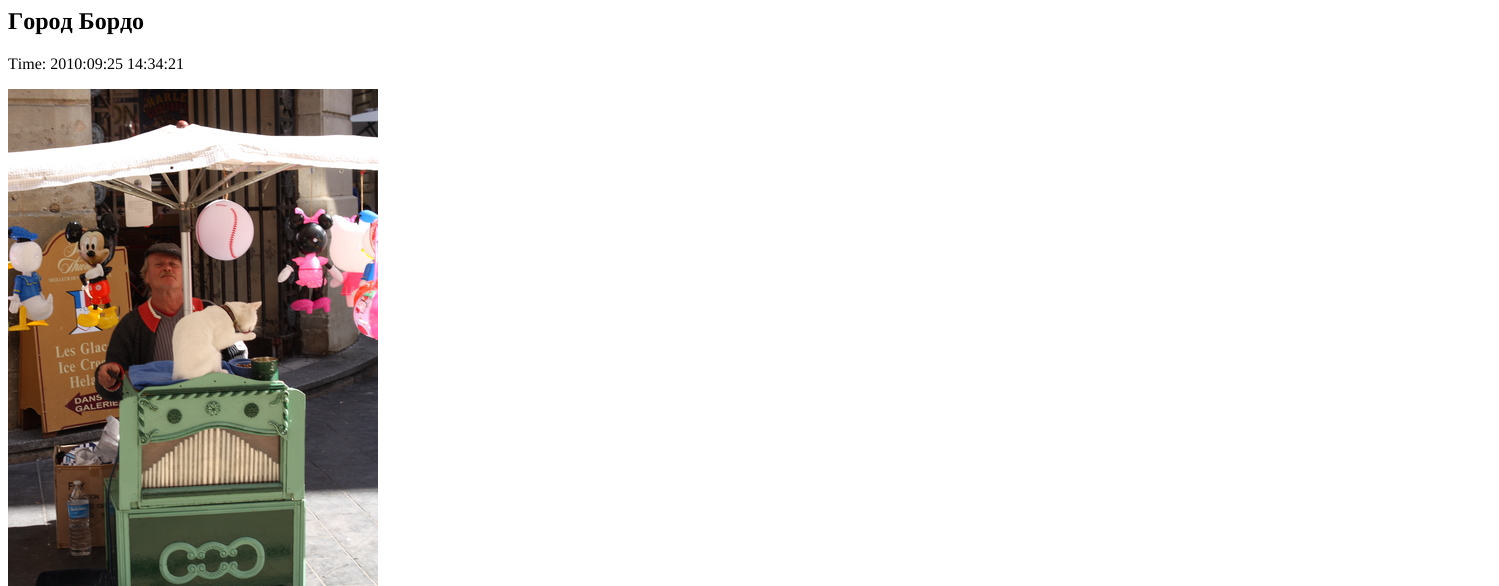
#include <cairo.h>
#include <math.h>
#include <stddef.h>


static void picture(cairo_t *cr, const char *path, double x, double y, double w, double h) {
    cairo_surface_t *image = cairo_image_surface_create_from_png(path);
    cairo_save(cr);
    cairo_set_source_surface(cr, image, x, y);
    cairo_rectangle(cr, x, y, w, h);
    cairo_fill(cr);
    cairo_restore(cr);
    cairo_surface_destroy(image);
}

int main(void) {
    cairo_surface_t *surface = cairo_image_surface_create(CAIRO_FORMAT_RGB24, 1499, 586);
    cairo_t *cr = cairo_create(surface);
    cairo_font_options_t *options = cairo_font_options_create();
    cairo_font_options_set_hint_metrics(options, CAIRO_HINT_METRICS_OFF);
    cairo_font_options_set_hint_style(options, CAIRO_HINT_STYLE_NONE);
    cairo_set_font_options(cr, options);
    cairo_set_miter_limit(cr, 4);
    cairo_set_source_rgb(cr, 1, 1, 1);
    cairo_paint(cr);
    cairo_select_font_face(cr, "Liberation Serif", CAIRO_FONT_SLANT_NORMAL, CAIRO_FONT_WEIGHT_BOLD);
    cairo_set_font_size(cr, 24);
    cairo_set_source_rgb(cr, 0, 0, 0);
    cairo_move_to(cr, 8, 29);
    cairo_show_text(cr, "Город Бордо");
    cairo_select_font_face(cr, "Liberation Serif", CAIRO_FONT_SLANT_NORMAL, CAIRO_FONT_WEIGHT_NORMAL);
    cairo_set_font_size(cr, 16);
    cairo_move_to(cr, 8, 69);
    cairo_show_text(cr, "Time: 2010:09:25 14:34:21");
    picture(cr, "img1.png", 8, 89, 370, 497);
    cairo_surface_write_to_png(surface, "page.png");
    cairo_font_options_destroy(options);
    cairo_destroy(cr);
    cairo_surface_destroy(surface);
    return 0;
}
